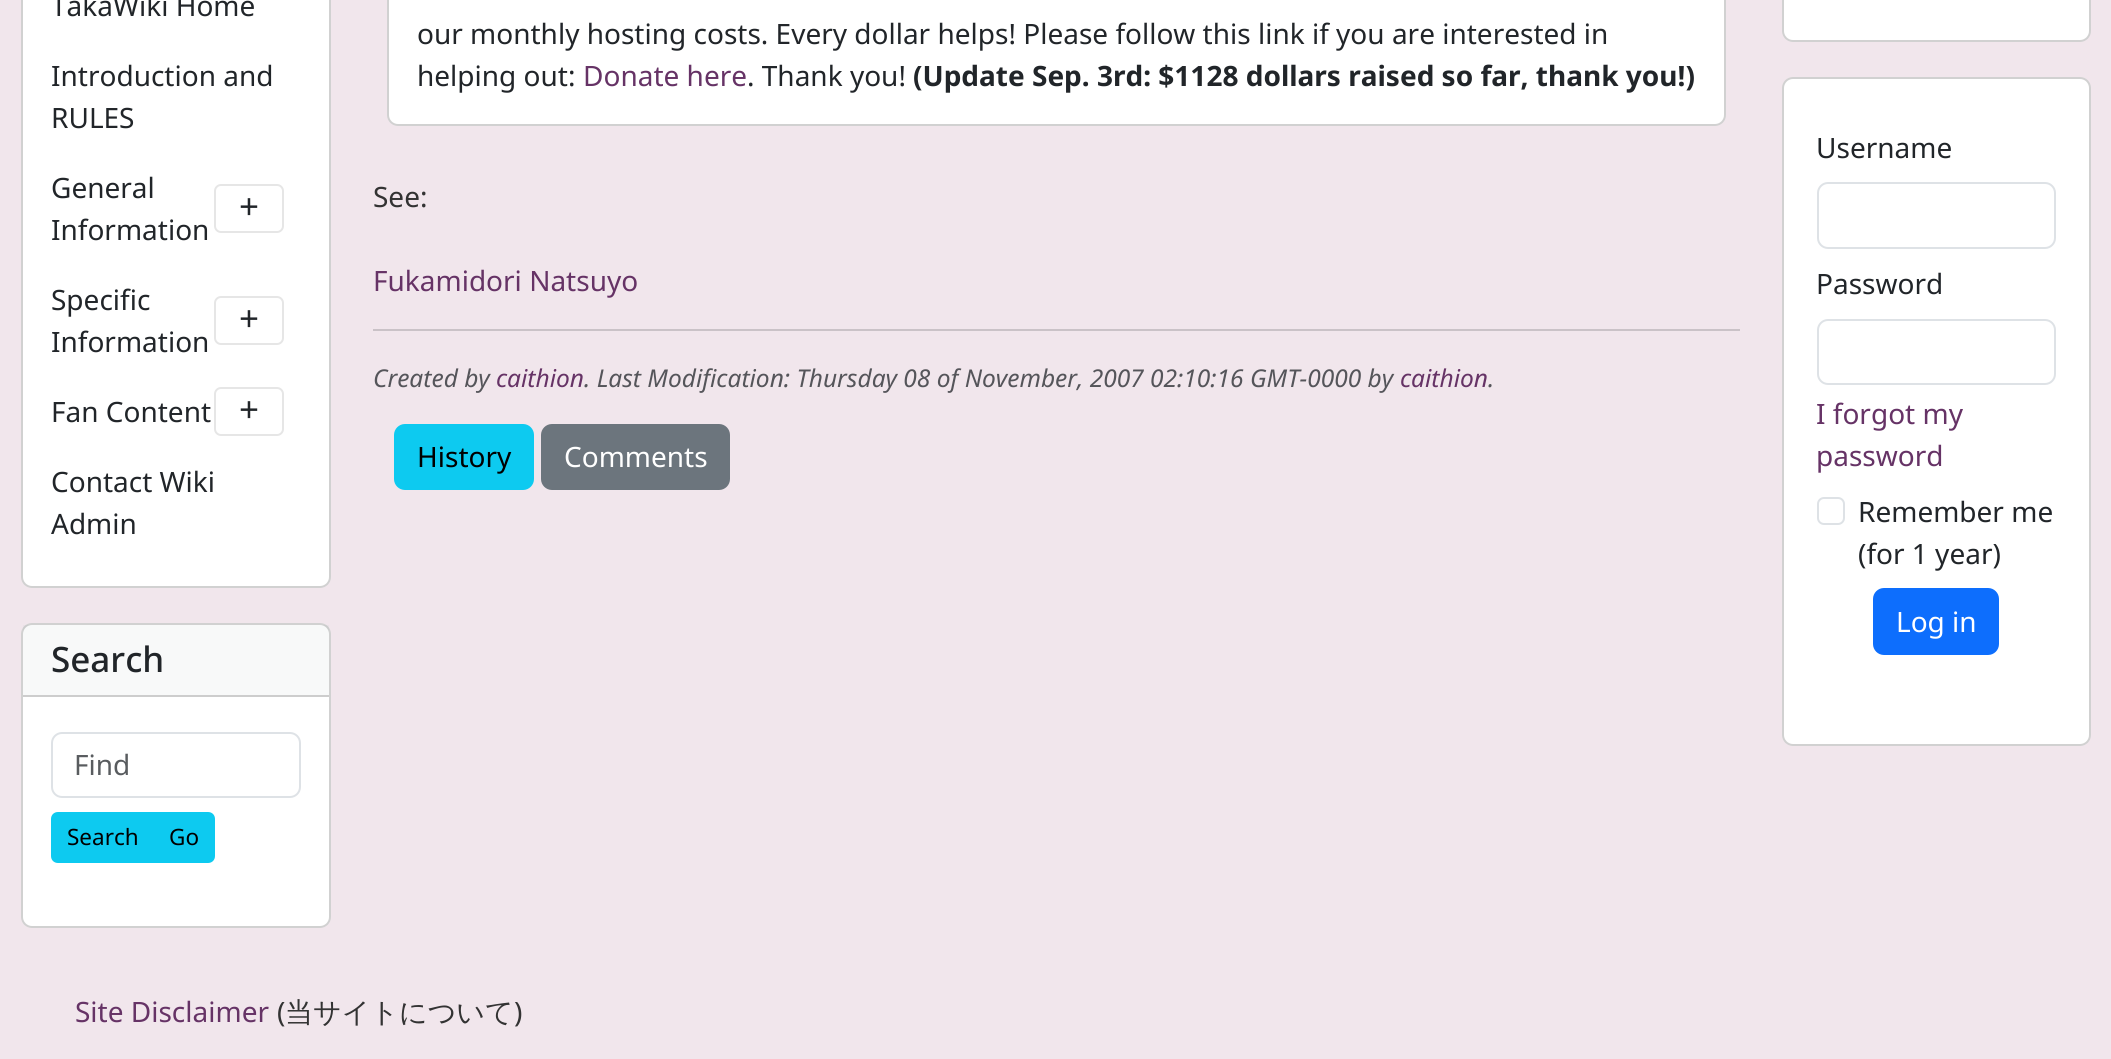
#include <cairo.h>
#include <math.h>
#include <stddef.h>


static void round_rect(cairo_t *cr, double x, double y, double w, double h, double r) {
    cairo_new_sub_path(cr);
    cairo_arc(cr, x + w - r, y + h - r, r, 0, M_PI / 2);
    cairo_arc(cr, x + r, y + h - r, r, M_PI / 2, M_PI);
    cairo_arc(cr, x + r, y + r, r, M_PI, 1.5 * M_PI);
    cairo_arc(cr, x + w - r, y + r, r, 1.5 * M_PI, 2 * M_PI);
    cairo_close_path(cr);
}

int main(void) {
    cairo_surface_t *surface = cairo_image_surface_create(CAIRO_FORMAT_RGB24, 2111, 1059);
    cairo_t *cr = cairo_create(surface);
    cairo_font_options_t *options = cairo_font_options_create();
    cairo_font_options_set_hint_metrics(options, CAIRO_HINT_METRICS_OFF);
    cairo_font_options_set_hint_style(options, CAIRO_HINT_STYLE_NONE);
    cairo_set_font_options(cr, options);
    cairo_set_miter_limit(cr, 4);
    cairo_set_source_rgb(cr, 0.945, 0.902, 0.922);
    cairo_paint(cr);
    cairo_set_source_rgb(cr, 1, 1, 1);
    round_rect(cr, 21, -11, 310, 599, 11);
    cairo_fill(cr);
    round_rect(cr, 22, -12, 308, 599, 10);
    cairo_set_source_rgba(cr, 0, 0, 0, 0.18);
    cairo_stroke(cr);
    cairo_select_font_face(cr, "Noto Sans", CAIRO_FONT_SLANT_NORMAL, CAIRO_FONT_WEIGHT_NORMAL);
    cairo_set_font_size(cr, 28);
    cairo_set_source_rgb(cr, 0.129, 0.145, 0.161);
    cairo_move_to(cr, 51, 16);
    cairo_show_text(cr, "TakaWiki Home");
    cairo_move_to(cr, 51, 86);
    cairo_show_text(cr, "Introduction and");
    cairo_move_to(cr, 51, 128);
    cairo_show_text(cr, "RULES");
    cairo_move_to(cr, 51, 198);
    cairo_show_text(cr, "General");
    round_rect(cr, 215, 185, 68, 47, 6);
    cairo_set_source_rgb(cr, 0.902, 0.902, 0.902);
    cairo_stroke(cr);
    cairo_set_font_size(cr, 35);
    cairo_set_source_rgb(cr, 0.129, 0.145, 0.161);
    cairo_move_to(cr, 239, 219);
    cairo_show_text(cr, "+");
    cairo_set_font_size(cr, 28);
    cairo_move_to(cr, 51, 240);
    cairo_show_text(cr, "Information");
    cairo_move_to(cr, 51, 310);
    cairo_show_text(cr, "Specific");
    round_rect(cr, 215, 297, 68, 47, 6);
    cairo_set_source_rgb(cr, 0.902, 0.902, 0.902);
    cairo_stroke(cr);
    cairo_set_font_size(cr, 35);
    cairo_set_source_rgb(cr, 0.129, 0.145, 0.161);
    cairo_move_to(cr, 239, 331);
    cairo_show_text(cr, "+");
    cairo_set_font_size(cr, 28);
    cairo_move_to(cr, 51, 352);
    cairo_show_text(cr, "Information");
    cairo_move_to(cr, 51, 422);
    cairo_show_text(cr, "Fan Content");
    round_rect(cr, 215, 388, 68, 47, 6);
    cairo_set_source_rgb(cr, 0.902, 0.902, 0.902);
    cairo_stroke(cr);
    cairo_set_font_size(cr, 35);
    cairo_set_source_rgb(cr, 0.129, 0.145, 0.161);
    cairo_move_to(cr, 239, 422);
    cairo_show_text(cr, "+");
    cairo_set_font_size(cr, 28);
    cairo_move_to(cr, 51, 492);
    cairo_show_text(cr, "Contact Wiki");
    cairo_move_to(cr, 51, 534);
    cairo_show_text(cr, "Admin");
    cairo_set_source_rgb(cr, 1, 1, 1);
    round_rect(cr, 21, 623, 310, 305, 11);
    cairo_fill(cr);
    round_rect(cr, 22, 624, 308, 303, 10);
    cairo_set_source_rgba(cr, 0, 0, 0, 0.18);
    cairo_stroke(cr);
    cairo_set_source_rgba(cr, 0.129, 0.145, 0.161, 0.03);
    cairo_rectangle(cr, 23, 625, 306, 70);
    cairo_fill(cr);
    cairo_set_source_rgb(cr, 0.804, 0.804, 0.804);
    cairo_rectangle(cr, 23, 695, 306, 2);
    cairo_fill(cr);
    cairo_select_font_face(cr, "Noto Sans Medium", CAIRO_FONT_SLANT_NORMAL, CAIRO_FONT_WEIGHT_NORMAL);
    cairo_set_font_size(cr, 35);
    cairo_set_source_rgb(cr, 0.129, 0.145, 0.161);
    cairo_move_to(cr, 51, 672);
    cairo_show_text(cr, "Search");
    round_rect(cr, 52, 733, 248, 64, 10);
    cairo_set_source_rgb(cr, 0.871, 0.886, 0.902);
    cairo_stroke(cr);
    cairo_select_font_face(cr, "Noto Sans", CAIRO_FONT_SLANT_NORMAL, CAIRO_FONT_WEIGHT_NORMAL);
    cairo_set_font_size(cr, 28);
    cairo_set_source_rgb(cr, 0.349, 0.361, 0.373);
    cairo_move_to(cr, 74, 775);
    cairo_show_text(cr, "Find");
    cairo_set_source_rgb(cr, 0.051, 0.792, 0.941);
    cairo_new_path(cr);
    cairo_move_to(cr, 58, 813);
    cairo_line_to(cr, 153, 813);
    cairo_line_to(cr, 153, 862);
    cairo_line_to(cr, 58, 862);
    cairo_curve_to(cr, 54.5, 862, 52, 859.5, 52, 856);
    cairo_line_to(cr, 52, 819);
    cairo_curve_to(cr, 52, 815.5, 54.5, 813, 58, 813);
    cairo_close_path(cr);
    cairo_fill_preserve(cr);
    cairo_stroke(cr);
    cairo_set_font_size(cr, 22.5);
    cairo_set_source_rgb(cr, 0, 0, 0);
    cairo_move_to(cr, 67, 845);
    cairo_show_text(cr, "Search");
    cairo_set_source_rgb(cr, 0.051, 0.792, 0.941);
    cairo_new_path(cr);
    cairo_move_to(cr, 155, 813);
    cairo_line_to(cr, 208, 813);
    cairo_curve_to(cr, 211.5, 813, 214, 815.5, 214, 819);
    cairo_line_to(cr, 214, 856);
    cairo_curve_to(cr, 214, 859.5, 211.5, 862, 208, 862);
    cairo_line_to(cr, 155, 862);
    cairo_close_path(cr);
    cairo_fill_preserve(cr);
    cairo_stroke(cr);
    cairo_set_source_rgb(cr, 0, 0, 0);
    cairo_move_to(cr, 169, 845);
    cairo_show_text(cr, "Go");
    cairo_set_source_rgb(cr, 1, 1, 1);
    round_rect(cr, 387, -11, 1339, 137, 11);
    cairo_fill(cr);
    round_rect(cr, 388, -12, 1337, 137, 10);
    cairo_set_source_rgba(cr, 0, 0, 0, 0.18);
    cairo_stroke(cr);
    cairo_set_font_size(cr, 28);
    cairo_set_source_rgb(cr, 0.129, 0.145, 0.161);
    cairo_move_to(cr, 417, 44);
    cairo_show_text(cr, "our monthly hosting costs. Every dollar helps! Please follow this link if you are interested in");
    cairo_move_to(cr, 417, 86);
    cairo_show_text(cr, "helping out:");
    cairo_set_source_rgb(cr, 0.4, 0.2, 0.4);
    cairo_move_to(cr, 583, 86);
    cairo_show_text(cr, "Donate here");
    cairo_set_source_rgb(cr, 0.129, 0.145, 0.161);
    cairo_move_to(cr, 747, 86);
    cairo_show_text(cr, ". Thank you!");
    cairo_select_font_face(cr, "Noto Sans", CAIRO_FONT_SLANT_NORMAL, CAIRO_FONT_WEIGHT_BOLD);
    cairo_move_to(cr, 913, 86);
    cairo_show_text(cr, "(Update Sep. 3rd: $1128 dollars raised so far, thank you!)");
    cairo_select_font_face(cr, "Noto Sans", CAIRO_FONT_SLANT_NORMAL, CAIRO_FONT_WEIGHT_NORMAL);
    cairo_set_source_rgb(cr, 0.2, 0.2, 0.2);
    cairo_move_to(cr, 373, 207);
    cairo_show_text(cr, "See:");
    cairo_set_source_rgb(cr, 0.4, 0.2, 0.4);
    cairo_move_to(cr, 373, 291);
    cairo_show_text(cr, "Fukamidori Natsuyo");
    cairo_set_source_rgb(cr, 0.792, 0.761, 0.78);
    cairo_rectangle(cr, 373, 329, 1367, 2);
    cairo_fill(cr);
    cairo_select_font_face(cr, "Noto Sans", CAIRO_FONT_SLANT_ITALIC, CAIRO_FONT_WEIGHT_NORMAL);
    cairo_set_font_size(cr, 24.5);
    cairo_set_source_rgb(cr, 0.333, 0.333, 0.353);
    cairo_move_to(cr, 373, 387);
    cairo_show_text(cr, "Created by");
    cairo_set_source_rgb(cr, 0.4, 0.2, 0.4);
    cairo_move_to(cr, 496, 387);
    cairo_show_text(cr, "caithion");
    cairo_set_source_rgb(cr, 0.333, 0.333, 0.353);
    cairo_move_to(cr, 584, 387);
    cairo_show_text(cr, ". Last Modification: Thursday 08 of November, 2007 02:10:16 GMT-0000 by");
    cairo_set_source_rgb(cr, 0.4, 0.2, 0.4);
    cairo_move_to(cr, 1400, 387);
    cairo_show_text(cr, "caithion");
    cairo_set_source_rgb(cr, 0.333, 0.333, 0.353);
    cairo_move_to(cr, 1488, 387);
    cairo_show_text(cr, ".");
    cairo_set_source_rgb(cr, 0.051, 0.792, 0.941);
    round_rect(cr, 395, 425, 138, 64, 10);
    cairo_fill_preserve(cr);
    cairo_stroke(cr);
    cairo_select_font_face(cr, "Noto Sans", CAIRO_FONT_SLANT_NORMAL, CAIRO_FONT_WEIGHT_NORMAL);
    cairo_set_font_size(cr, 28);
    cairo_set_source_rgb(cr, 0, 0, 0);
    cairo_move_to(cr, 417, 467);
    cairo_show_text(cr, "History");
    cairo_set_source_rgb(cr, 0.424, 0.459, 0.49);
    round_rect(cr, 542, 425, 187, 64, 10);
    cairo_fill_preserve(cr);
    cairo_stroke(cr);
    cairo_set_source_rgb(cr, 1, 1, 1);
    cairo_move_to(cr, 564, 467);
    cairo_show_text(cr, "Comments");
    round_rect(cr, 1782, -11, 309, 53, 11);
    cairo_fill(cr);
    round_rect(cr, 1783, -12, 307, 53, 10);
    cairo_set_source_rgba(cr, 0, 0, 0, 0.18);
    cairo_stroke(cr);
    cairo_set_source_rgb(cr, 1, 1, 1);
    round_rect(cr, 1782, 77, 309, 669, 11);
    cairo_fill(cr);
    round_rect(cr, 1783, 78, 307, 667, 10);
    cairo_set_source_rgba(cr, 0, 0, 0, 0.18);
    cairo_stroke(cr);
    cairo_set_source_rgb(cr, 0.129, 0.145, 0.161);
    cairo_move_to(cr, 1816, 158);
    cairo_show_text(cr, "Username");
    round_rect(cr, 1818, 183, 237, 65, 10);
    cairo_set_source_rgb(cr, 0.871, 0.886, 0.902);
    cairo_stroke(cr);
    cairo_set_source_rgb(cr, 0.129, 0.145, 0.161);
    cairo_move_to(cr, 1816, 294);
    cairo_show_text(cr, "Password");
    round_rect(cr, 1818, 320, 237, 64, 10);
    cairo_set_source_rgb(cr, 0.871, 0.886, 0.902);
    cairo_stroke(cr);
    cairo_set_source_rgb(cr, 0.4, 0.2, 0.4);
    cairo_move_to(cr, 1816, 424);
    cairo_show_text(cr, "I forgot my");
    cairo_move_to(cr, 1816, 466);
    cairo_show_text(cr, "password");
    round_rect(cr, 1818, 498, 26, 26, 6);
    cairo_set_source_rgb(cr, 0.871, 0.886, 0.902);
    cairo_stroke(cr);
    cairo_set_source_rgb(cr, 0.129, 0.145, 0.161);
    cairo_move_to(cr, 1858, 522);
    cairo_show_text(cr, "Remember me");
    cairo_move_to(cr, 1858, 564);
    cairo_show_text(cr, "(for 1 year)");
    cairo_set_source_rgb(cr, 0.051, 0.431, 0.992);
    round_rect(cr, 1874, 589, 124, 65, 10);
    cairo_fill_preserve(cr);
    cairo_stroke(cr);
    cairo_set_source_rgb(cr, 1, 1, 1);
    cairo_move_to(cr, 1896, 632);
    cairo_show_text(cr, "Log in");
    cairo_set_source_rgb(cr, 0.4, 0.2, 0.4);
    cairo_move_to(cr, 75, 1022);
    cairo_show_text(cr, "Site Disclaimer");
    cairo_set_source_rgb(cr, 0.2, 0.2, 0.2);
    cairo_move_to(cr, 277, 1022);
    cairo_show_text(cr, "(");
    cairo_select_font_face(cr, "WenQuanYi Zen Hei Medium", CAIRO_FONT_SLANT_NORMAL, CAIRO_FONT_WEIGHT_NORMAL);
    cairo_move_to(cr, 285, 1022);
    cairo_show_text(cr, "当サイトについて");
    cairo_select_font_face(cr, "Noto Sans", CAIRO_FONT_SLANT_NORMAL, CAIRO_FONT_WEIGHT_NORMAL);
    cairo_move_to(cr, 514, 1022);
    cairo_show_text(cr, ")");
    cairo_surface_write_to_png(surface, "page.png");
    cairo_font_options_destroy(options);
    cairo_destroy(cr);
    cairo_surface_destroy(surface);
    return 0;
}
